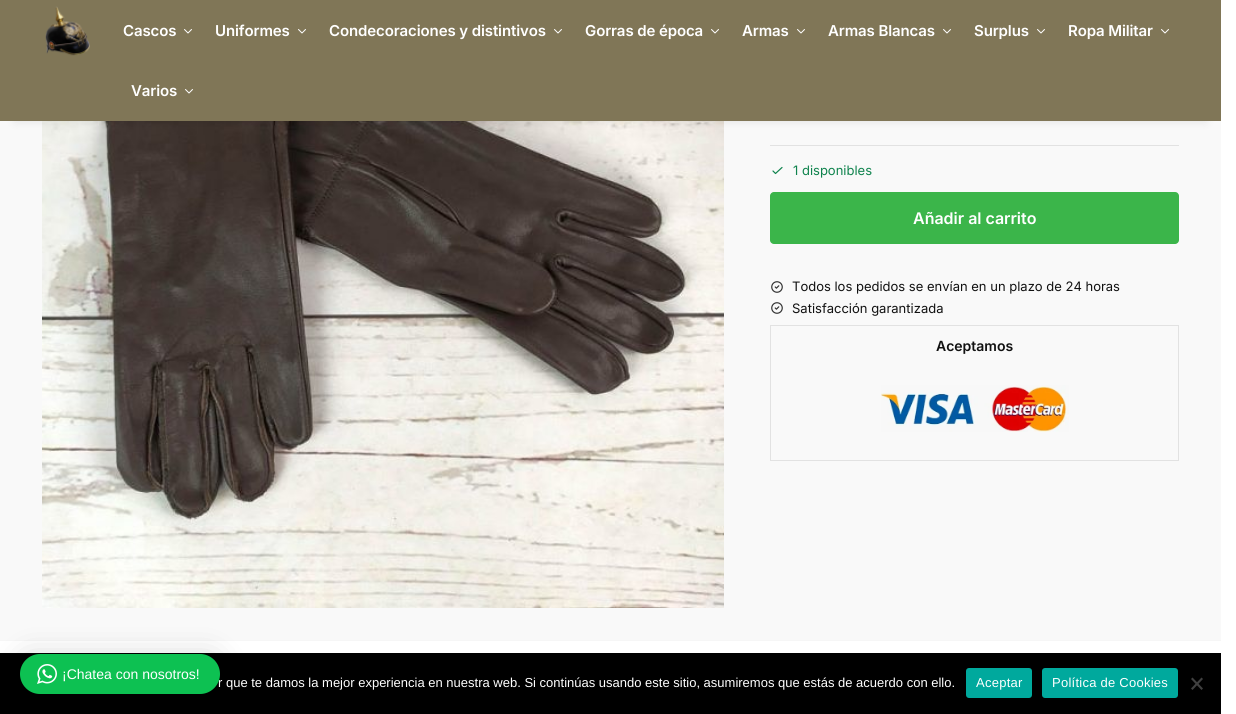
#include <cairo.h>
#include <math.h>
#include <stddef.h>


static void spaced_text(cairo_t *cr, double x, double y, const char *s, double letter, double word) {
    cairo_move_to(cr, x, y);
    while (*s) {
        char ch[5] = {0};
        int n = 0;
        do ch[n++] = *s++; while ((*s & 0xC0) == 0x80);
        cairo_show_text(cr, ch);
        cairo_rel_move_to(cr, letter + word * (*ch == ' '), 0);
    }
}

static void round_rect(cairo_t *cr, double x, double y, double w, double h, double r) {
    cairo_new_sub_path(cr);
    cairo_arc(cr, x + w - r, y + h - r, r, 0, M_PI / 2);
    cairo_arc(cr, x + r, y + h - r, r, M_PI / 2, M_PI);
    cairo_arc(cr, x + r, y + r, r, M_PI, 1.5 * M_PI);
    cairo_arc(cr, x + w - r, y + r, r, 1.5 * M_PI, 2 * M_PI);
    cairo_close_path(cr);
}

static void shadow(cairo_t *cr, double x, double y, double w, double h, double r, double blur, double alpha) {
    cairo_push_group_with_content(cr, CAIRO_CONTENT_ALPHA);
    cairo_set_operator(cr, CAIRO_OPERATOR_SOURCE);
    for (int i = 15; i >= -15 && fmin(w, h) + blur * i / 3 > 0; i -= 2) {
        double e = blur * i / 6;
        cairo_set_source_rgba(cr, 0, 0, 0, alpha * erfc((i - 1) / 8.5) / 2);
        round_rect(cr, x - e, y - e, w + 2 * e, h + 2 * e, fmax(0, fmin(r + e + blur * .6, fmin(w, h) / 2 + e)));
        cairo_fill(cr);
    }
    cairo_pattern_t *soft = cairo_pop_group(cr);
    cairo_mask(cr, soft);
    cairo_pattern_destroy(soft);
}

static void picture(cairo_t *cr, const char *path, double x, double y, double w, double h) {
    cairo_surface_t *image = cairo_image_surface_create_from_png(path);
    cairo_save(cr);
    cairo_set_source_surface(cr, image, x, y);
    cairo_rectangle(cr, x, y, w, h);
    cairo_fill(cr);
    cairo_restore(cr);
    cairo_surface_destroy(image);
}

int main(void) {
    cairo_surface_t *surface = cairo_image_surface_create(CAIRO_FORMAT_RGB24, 1236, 714);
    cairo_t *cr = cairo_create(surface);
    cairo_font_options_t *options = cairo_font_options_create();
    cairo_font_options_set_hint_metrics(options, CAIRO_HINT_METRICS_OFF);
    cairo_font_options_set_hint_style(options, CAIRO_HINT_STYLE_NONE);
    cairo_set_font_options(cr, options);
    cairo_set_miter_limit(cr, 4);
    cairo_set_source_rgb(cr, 1, 1, 1);
    cairo_paint(cr);
    cairo_set_source_rgb(cr, 0.973, 0.973, 0.973);
    cairo_rectangle(cr, 0, 121, 1221, 519);
    cairo_fill(cr);
    picture(cr, "img2.png", 42, 121, 682, 487);
    cairo_set_source_rgb(cr, 0, 0, 0);
    shadow(cr, 15, 30, 1191, 91, 0, 5, 0.1);
    cairo_set_source_rgb(cr, 0.502, 0.463, 0.341);
    cairo_rectangle(cr, 0, 0, 1221, 121);
    cairo_fill(cr);
    picture(cr, "img1.png", 45, 6, 45, 50);
    cairo_select_font_face(cr, "Inter SemiBold", CAIRO_FONT_SLANT_NORMAL, CAIRO_FONT_WEIGHT_NORMAL);
    cairo_set_font_size(cr, 15);
    cairo_set_source_rgb(cr, 1, 1, 1);
    spaced_text(cr, 123, 36, "Cascos", -0.1, 0);
    cairo_new_path(cr);
    cairo_move_to(cr, 191.5, 29.5);
    cairo_line_to(cr, 188, 33);
    cairo_line_to(cr, 184.5, 29.5);
    cairo_set_line_width(cr, 1);
    cairo_set_line_cap(cr, CAIRO_LINE_CAP_ROUND);
    cairo_set_line_join(cr, CAIRO_LINE_JOIN_ROUND);
    cairo_stroke(cr);
    spaced_text(cr, 215, 36, "Uniformes", -0.1, 0);
    cairo_new_path(cr);
    cairo_move_to(cr, 305.5, 29.5);
    cairo_line_to(cr, 302, 33);
    cairo_line_to(cr, 298.5, 29.5);
    cairo_stroke(cr);
    spaced_text(cr, 329, 36, "Condecoraciones y distintivos", -0.1, 0);
    cairo_new_path(cr);
    cairo_move_to(cr, 561.5, 29.5);
    cairo_line_to(cr, 558, 33);
    cairo_line_to(cr, 554.5, 29.5);
    cairo_stroke(cr);
    spaced_text(cr, 585, 36, "Gorras de época", -0.1, 0);
    cairo_new_path(cr);
    cairo_move_to(cr, 718.5, 29.5);
    cairo_line_to(cr, 715, 33);
    cairo_line_to(cr, 711.5, 29.5);
    cairo_stroke(cr);
    spaced_text(cr, 742, 36, "Armas", -0.1, 0);
    cairo_new_path(cr);
    cairo_move_to(cr, 804.5, 29.5);
    cairo_line_to(cr, 801, 33);
    cairo_line_to(cr, 797.5, 29.5);
    cairo_stroke(cr);
    spaced_text(cr, 828, 36, "Armas Blancas", -0.1, 0);
    cairo_new_path(cr);
    cairo_move_to(cr, 950.5, 29.5);
    cairo_line_to(cr, 947, 33);
    cairo_line_to(cr, 943.5, 29.5);
    cairo_stroke(cr);
    spaced_text(cr, 974, 36, "Surplus", -0.1, 0);
    cairo_new_path(cr);
    cairo_move_to(cr, 1044.5, 29.5);
    cairo_line_to(cr, 1041, 33);
    cairo_line_to(cr, 1037.5, 29.5);
    cairo_stroke(cr);
    spaced_text(cr, 1068, 36, "Ropa Militar", -0.1, 0);
    cairo_new_path(cr);
    cairo_move_to(cr, 1168.5, 29.5);
    cairo_line_to(cr, 1165, 33);
    cairo_line_to(cr, 1161.5, 29.5);
    cairo_stroke(cr);
    spaced_text(cr, 131, 96, "Varios", -0.1, 0);
    cairo_new_path(cr);
    cairo_move_to(cr, 192.5, 89.5);
    cairo_line_to(cr, 189, 93);
    cairo_line_to(cr, 185.5, 89.5);
    cairo_stroke(cr);
    cairo_set_source_rgb(cr, 0.886, 0.886, 0.886);
    cairo_rectangle(cr, 770, 145, 409, 1);
    cairo_fill(cr);
    cairo_new_path(cr);
    cairo_move_to(cr, 773, 171);
    cairo_line_to(cr, 775.5, 173.5);
    cairo_line_to(cr, 782, 167.5);
    cairo_set_source_rgb(cr, 0.059, 0.514, 0.302);
    cairo_set_line_width(cr, 1.2);
    cairo_stroke(cr);
    cairo_select_font_face(cr, "Inter", CAIRO_FONT_SLANT_NORMAL, CAIRO_FONT_WEIGHT_NORMAL);
    cairo_set_font_size(cr, 13);
    cairo_move_to(cr, 793, 175);
    cairo_show_text(cr, "1 disponibles");
    cairo_set_source_rgb(cr, 0.231, 0.71, 0.29);
    round_rect(cr, 770, 192, 409, 52, 4);
    cairo_fill(cr);
    cairo_select_font_face(cr, "Inter SemiBold", CAIRO_FONT_SLANT_NORMAL, CAIRO_FONT_WEIGHT_NORMAL);
    cairo_set_font_size(cr, 16);
    cairo_set_source_rgb(cr, 1, 1, 1);
    cairo_move_to(cr, 913, 224);
    cairo_show_text(cr, "Añadir al carrito");
    picture(cr, "img3.png", 771, 281, 12, 12);
    cairo_select_font_face(cr, "Inter", CAIRO_FONT_SLANT_NORMAL, CAIRO_FONT_WEIGHT_NORMAL);
    cairo_set_font_size(cr, 13);
    cairo_set_source_rgb(cr, 0.067, 0.067, 0.067);
    cairo_move_to(cr, 792, 291);
    cairo_show_text(cr, "Todos los pedidos se envían en un plazo de 24 horas");
    picture(cr, "img3.png", 771, 302, 12, 12);
    cairo_move_to(cr, 792, 313);
    cairo_show_text(cr, "Satisfacción garantizada");
    cairo_rectangle(cr, 770.5, 325.5, 408, 135);
    cairo_set_source_rgb(cr, 0.886, 0.886, 0.886);
    cairo_set_line_width(cr, 1);
    cairo_set_line_cap(cr, CAIRO_LINE_CAP_BUTT);
    cairo_set_line_join(cr, CAIRO_LINE_JOIN_MITER);
    cairo_stroke(cr);
    cairo_select_font_face(cr, "Inter SemiBold", CAIRO_FONT_SLANT_NORMAL, CAIRO_FONT_WEIGHT_NORMAL);
    cairo_set_font_size(cr, 14);
    cairo_set_source_rgb(cr, 0.067, 0.067, 0.067);
    cairo_move_to(cr, 936, 351);
    cairo_show_text(cr, "Aceptamos");
    picture(cr, "img4.png", 881, 385, 188, 47);
    cairo_set_source_rgb(cr, 0.961, 0.961, 0.961);
    cairo_rectangle(cr, 0, 640, 1221, 1);
    cairo_fill(cr);
    cairo_set_source_rgb(cr, 0, 0, 0);
    cairo_rectangle(cr, 0, 653, 1221, 61);
    cairo_fill(cr);
    cairo_set_source_rgb(cr, 0, 0, 0);
    shadow(cr, 20, 656, 200, 40, 20, 16, 0.16);
    cairo_select_font_face(cr, "Liberation Sans", CAIRO_FONT_SLANT_NORMAL, CAIRO_FONT_WEIGHT_NORMAL);
    cairo_set_font_size(cr, 13);
    cairo_set_source_rgb(cr, 1, 1, 1);
    cairo_move_to(cr, 218, 687);
    cairo_show_text(cr, "r que te damos la mejor experiencia en nuestra web. Si continúas usando este sitio, asumiremos que estás de acuerdo con ello.");
    cairo_set_source_rgb(cr, 0.051, 0.757, 0.322);
    round_rect(cr, 20, 654, 200, 40, 20);
    cairo_fill(cr);
    picture(cr, "img5.png", 37, 664, 20, 20);
    cairo_set_font_size(cr, 14);
    cairo_set_source_rgb(cr, 1, 1, 1);
    cairo_move_to(cr, 62, 679);
    cairo_show_text(cr, "¡Chatea con nosotros!");
    cairo_set_source_rgb(cr, 0, 0.663, 0.616);
    round_rect(cr, 966, 668, 66, 30, 3);
    cairo_fill(cr);
    cairo_set_font_size(cr, 13);
    cairo_set_source_rgb(cr, 1, 1, 1);
    spaced_text(cr, 976, 687, "Aceptar", 0.25, 0);
    cairo_set_source_rgb(cr, 0, 0.663, 0.616);
    round_rect(cr, 1042, 668, 136, 30, 3);
    cairo_fill(cr);
    cairo_set_source_rgb(cr, 1, 1, 1);
    spaced_text(cr, 1052, 687, "Política de Cookies", 0.25, 0);
    cairo_set_source_rgb(cr, 0.251, 0.251, 0.251);
    cairo_new_path(cr);
    cairo_move_to(cr, 1201.5, 677.5);
    cairo_line_to(cr, 1203, 679);
    cairo_line_to(cr, 1192.5, 690);
    cairo_line_to(cr, 1191, 688.5);
    cairo_close_path(cr);
    cairo_fill(cr);
    cairo_new_path(cr);
    cairo_move_to(cr, 1191, 679);
    cairo_line_to(cr, 1192.5, 677.5);
    cairo_line_to(cr, 1203, 688.5);
    cairo_line_to(cr, 1201.5, 690);
    cairo_close_path(cr);
    cairo_fill(cr);
    cairo_surface_write_to_png(surface, "page.png");
    cairo_font_options_destroy(options);
    cairo_destroy(cr);
    cairo_surface_destroy(surface);
    return 0;
}
